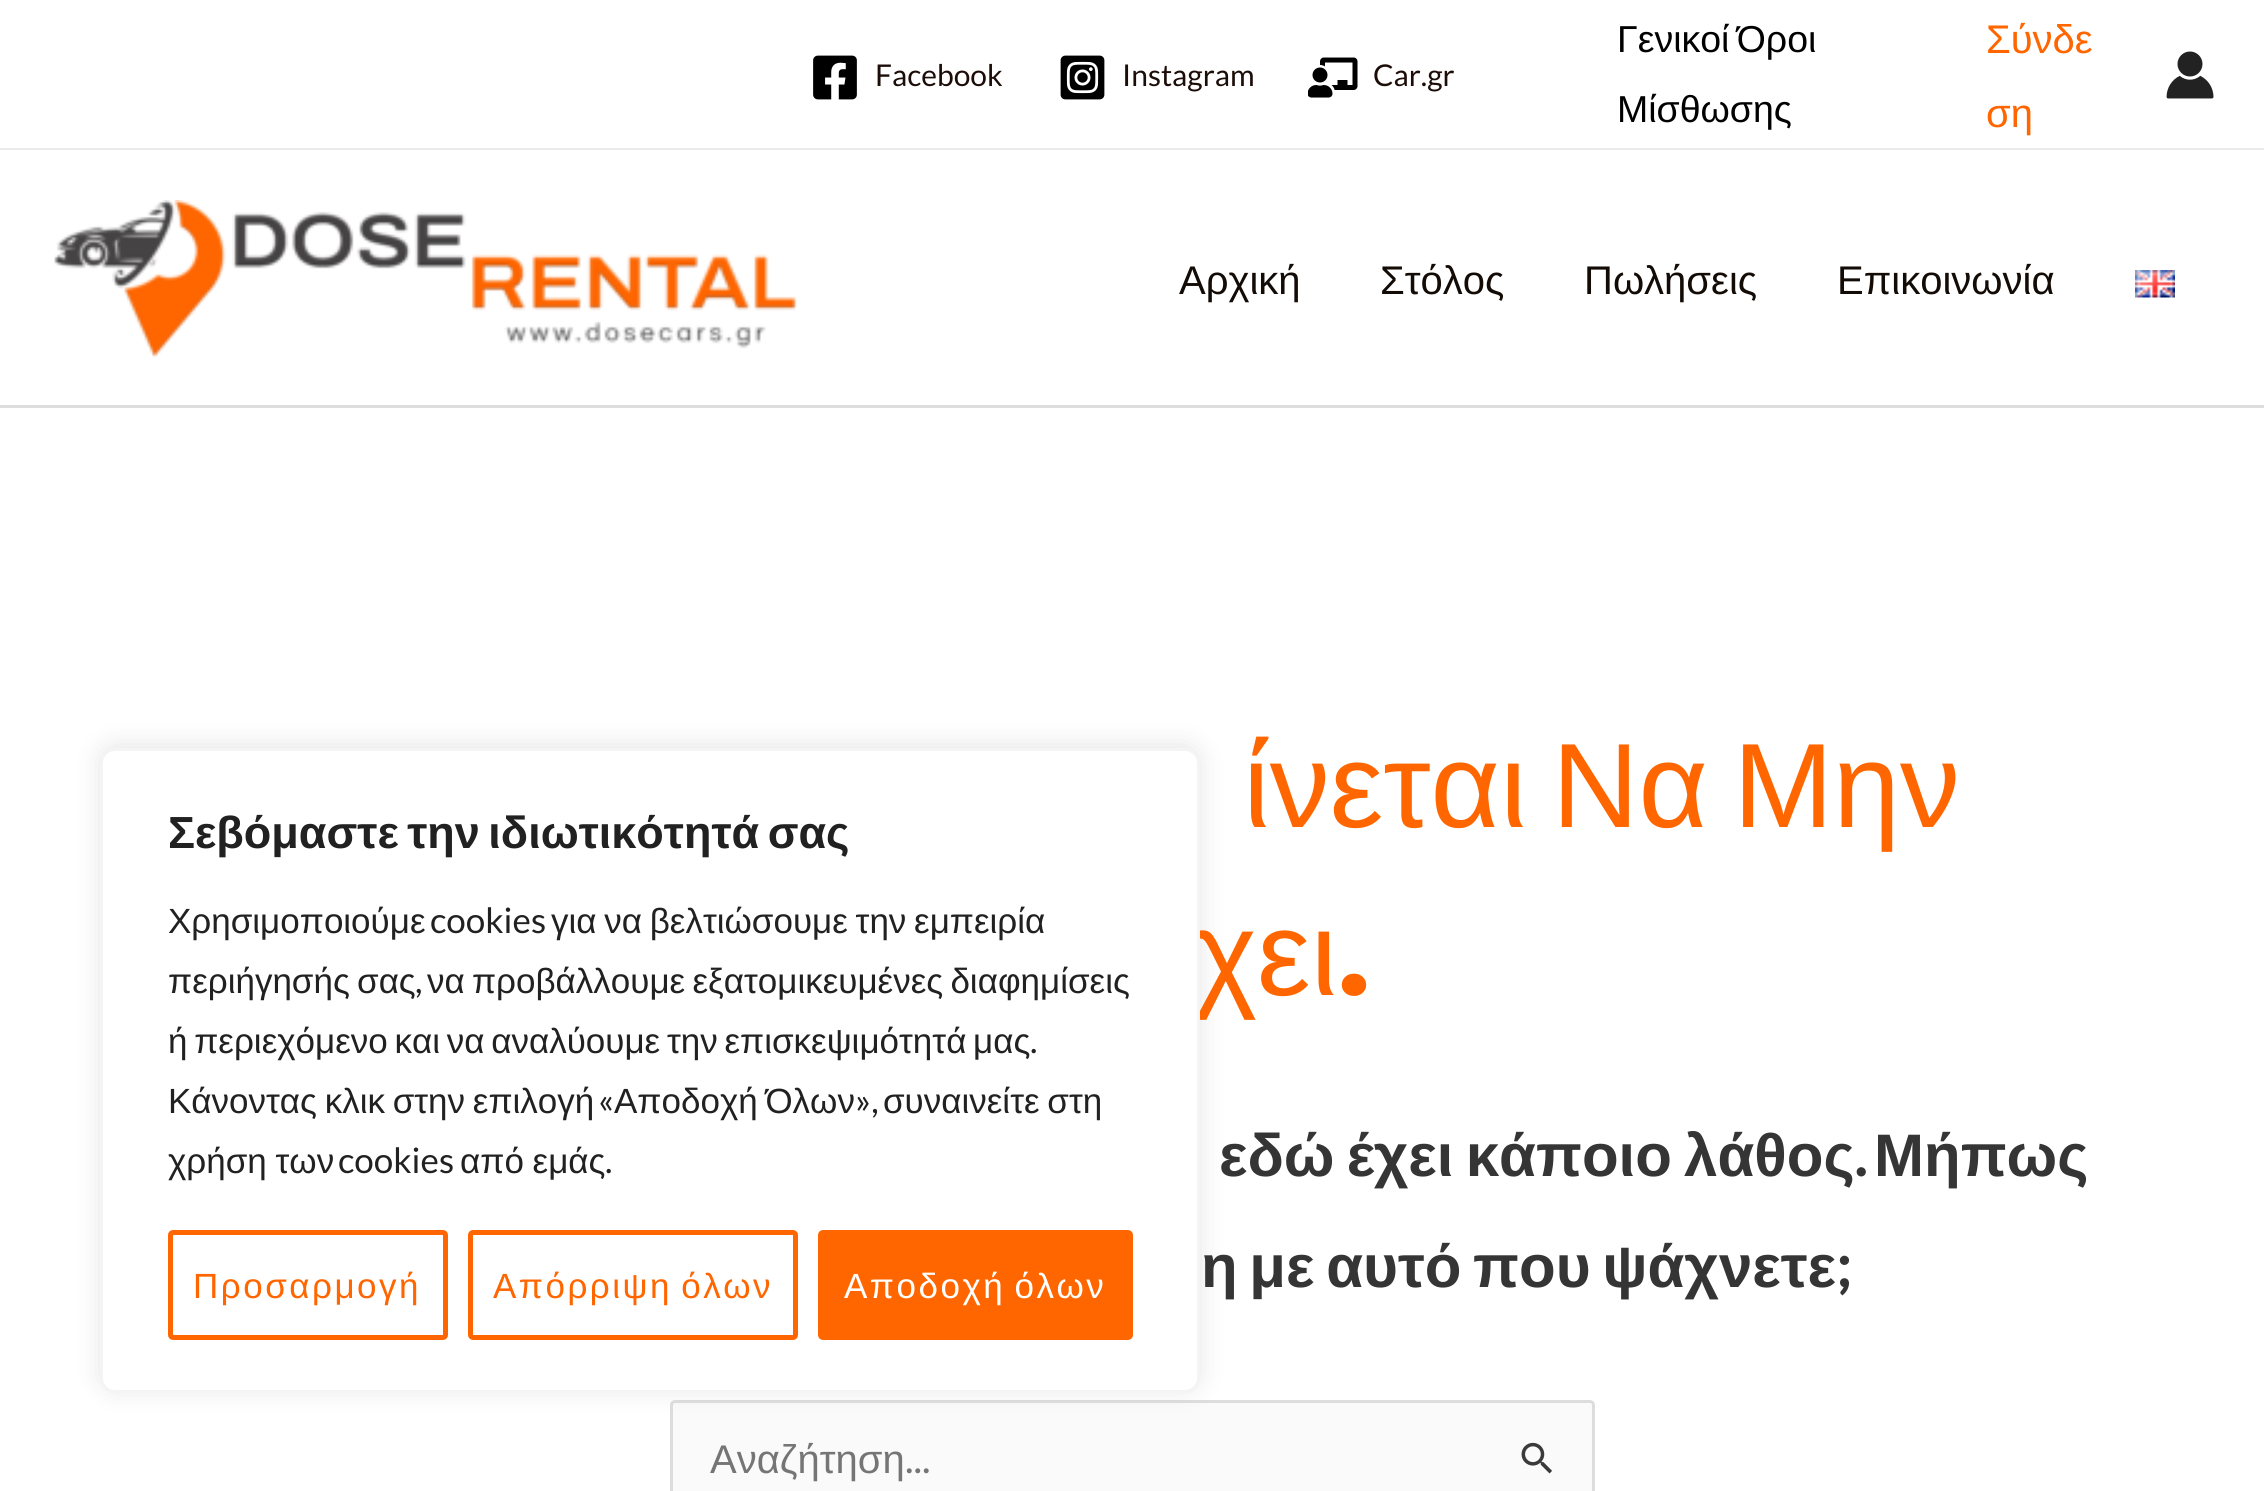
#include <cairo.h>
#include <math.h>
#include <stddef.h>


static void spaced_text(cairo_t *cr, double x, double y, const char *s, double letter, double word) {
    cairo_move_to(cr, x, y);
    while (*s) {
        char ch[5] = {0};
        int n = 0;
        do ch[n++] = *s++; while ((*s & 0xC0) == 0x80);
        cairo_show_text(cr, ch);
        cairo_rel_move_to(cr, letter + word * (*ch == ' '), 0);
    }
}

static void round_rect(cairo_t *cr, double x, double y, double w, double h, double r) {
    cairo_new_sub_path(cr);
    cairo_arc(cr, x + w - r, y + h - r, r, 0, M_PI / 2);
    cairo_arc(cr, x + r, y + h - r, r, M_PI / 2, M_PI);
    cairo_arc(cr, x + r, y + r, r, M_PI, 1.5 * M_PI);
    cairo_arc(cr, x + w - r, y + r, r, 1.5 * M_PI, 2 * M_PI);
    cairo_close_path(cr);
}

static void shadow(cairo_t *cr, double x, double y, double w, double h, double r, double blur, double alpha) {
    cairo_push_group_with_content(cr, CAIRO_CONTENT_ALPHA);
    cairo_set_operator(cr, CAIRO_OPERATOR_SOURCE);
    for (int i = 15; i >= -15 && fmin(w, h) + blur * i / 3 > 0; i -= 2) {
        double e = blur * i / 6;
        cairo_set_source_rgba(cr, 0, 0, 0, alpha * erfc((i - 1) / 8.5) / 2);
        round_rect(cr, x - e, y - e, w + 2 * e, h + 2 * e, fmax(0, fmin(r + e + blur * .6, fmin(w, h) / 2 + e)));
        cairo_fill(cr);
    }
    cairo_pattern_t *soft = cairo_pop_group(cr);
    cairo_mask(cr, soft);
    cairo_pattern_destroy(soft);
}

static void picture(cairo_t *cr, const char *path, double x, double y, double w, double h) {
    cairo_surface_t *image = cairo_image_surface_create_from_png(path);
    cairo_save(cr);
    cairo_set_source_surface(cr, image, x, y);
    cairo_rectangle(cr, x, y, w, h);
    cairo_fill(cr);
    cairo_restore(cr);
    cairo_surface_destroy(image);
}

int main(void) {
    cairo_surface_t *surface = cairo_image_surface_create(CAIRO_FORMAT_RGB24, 2264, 1491);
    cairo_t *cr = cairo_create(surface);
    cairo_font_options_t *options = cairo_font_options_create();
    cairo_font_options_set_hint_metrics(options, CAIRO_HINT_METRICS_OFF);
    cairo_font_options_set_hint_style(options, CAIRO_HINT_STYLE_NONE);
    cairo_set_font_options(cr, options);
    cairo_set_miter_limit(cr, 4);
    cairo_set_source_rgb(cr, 1, 1, 1);
    cairo_paint(cr);
    cairo_set_source_rgb(cr, 0.98, 0.98, 0.98);
    round_rect(cr, 671.5, 1401.5, 922, 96, 3.5);
    cairo_fill_preserve(cr);
    cairo_set_source_rgb(cr, 0.867, 0.867, 0.867);
    cairo_set_line_width(cr, 3);
    cairo_stroke(cr);
    cairo_set_source_rgb(cr, 0.675, 0.671, 0.671);
    shadow(cr, 100, 745, 1100, 645, 15, 12.5, 0.3);
    cairo_select_font_face(cr, "Liberation Sans", CAIRO_FONT_SLANT_NORMAL, CAIRO_FONT_WEIGHT_NORMAL);
    cairo_set_font_size(cr, 120);
    cairo_set_source_rgb(cr, 1, 0.4, 0);
    cairo_move_to(cr, 1194, 995);
    cairo_show_text(cr, "χει");
    cairo_set_source_rgb(cr, 1, 1, 1);
    round_rect(cr, 101.5, 749.5, 1097, 642, 13.5);
    cairo_fill_preserve(cr);
    cairo_set_source_rgb(cr, 0.957, 0.957, 0.957);
    cairo_stroke(cr);
    cairo_select_font_face(cr, "Liberation Sans", CAIRO_FONT_SLANT_NORMAL, CAIRO_FONT_WEIGHT_BOLD);
    cairo_set_font_size(cr, 45);
    cairo_set_source_rgb(cr, 0.129, 0.129, 0.129);
    spaced_text(cr, 168, 848, "Σεβόμαστε την ιδιωτικότητά σας", 0, -4);
    cairo_select_font_face(cr, "Liberation Sans", CAIRO_FONT_SLANT_NORMAL, CAIRO_FONT_WEIGHT_NORMAL);
    cairo_set_font_size(cr, 35);
    cairo_move_to(cr, 168, 933);
    cairo_show_text(cr, "Χρησιμοποιούμε");
    cairo_select_font_face(cr, "Lato", CAIRO_FONT_SLANT_NORMAL, CAIRO_FONT_WEIGHT_NORMAL);
    cairo_move_to(cr, 430, 933);
    cairo_show_text(cr, "cookies");
    cairo_select_font_face(cr, "Liberation Sans", CAIRO_FONT_SLANT_NORMAL, CAIRO_FONT_WEIGHT_NORMAL);
    spaced_text(cr, 551, 933, "για να βελτιώσουμε την εμπειρία", 0, -2);
    spaced_text(cr, 168, 993, "περιήγησής σας", 0, -2.5);
    cairo_select_font_face(cr, "Lato", CAIRO_FONT_SLANT_NORMAL, CAIRO_FONT_WEIGHT_NORMAL);
    cairo_move_to(cr, 415, 993);
    cairo_show_text(cr, ",");
    cairo_select_font_face(cr, "Liberation Sans", CAIRO_FONT_SLANT_NORMAL, CAIRO_FONT_WEIGHT_NORMAL);
    spaced_text(cr, 427, 993, "να προβάλλουμε εξατομικευμένες διαφημίσεις", 0, -2.5);
    spaced_text(cr, 168, 1053, "ή περιεχόμενο και να αναλύουμε την επισκεψιμότητά μας", 0, -3);
    cairo_select_font_face(cr, "Lato", CAIRO_FONT_SLANT_NORMAL, CAIRO_FONT_WEIGHT_NORMAL);
    cairo_move_to(cr, 1030, 1053);
    cairo_show_text(cr, ".");
    cairo_select_font_face(cr, "Liberation Sans", CAIRO_FONT_SLANT_NORMAL, CAIRO_FONT_WEIGHT_NORMAL);
    spaced_text(cr, 168, 1113, "Κάνοντας κλικ στην επιλογή", 0, -2);
    cairo_select_font_face(cr, "Lato", CAIRO_FONT_SLANT_NORMAL, CAIRO_FONT_WEIGHT_NORMAL);
    cairo_move_to(cr, 598, 1113);
    cairo_show_text(cr, "«");
    cairo_select_font_face(cr, "Liberation Sans", CAIRO_FONT_SLANT_NORMAL, CAIRO_FONT_WEIGHT_NORMAL);
    spaced_text(cr, 614, 1113, "Αποδοχή Όλων", 0, -2);
    cairo_select_font_face(cr, "Lato", CAIRO_FONT_SLANT_NORMAL, CAIRO_FONT_WEIGHT_NORMAL);
    cairo_move_to(cr, 855, 1113);
    cairo_show_text(cr, "»,");
    cairo_select_font_face(cr, "Liberation Sans", CAIRO_FONT_SLANT_NORMAL, CAIRO_FONT_WEIGHT_NORMAL);
    spaced_text(cr, 883, 1113, "συναινείτε στη", 0, -2);
    spaced_text(cr, 168, 1173, "χρήση των", 0, -1);
    cairo_select_font_face(cr, "Lato", CAIRO_FONT_SLANT_NORMAL, CAIRO_FONT_WEIGHT_NORMAL);
    cairo_move_to(cr, 338, 1173);
    cairo_show_text(cr, "cookies");
    cairo_select_font_face(cr, "Liberation Sans", CAIRO_FONT_SLANT_NORMAL, CAIRO_FONT_WEIGHT_NORMAL);
    spaced_text(cr, 460, 1173, "από εμάς", 0, -1);
    cairo_select_font_face(cr, "Lato", CAIRO_FONT_SLANT_NORMAL, CAIRO_FONT_WEIGHT_NORMAL);
    cairo_move_to(cr, 605, 1173);
    cairo_show_text(cr, ".");
    round_rect(cr, 170.5, 1232.5, 275, 105, 2.5);
    cairo_set_source_rgb(cr, 1, 0.4, 0);
    cairo_set_line_width(cr, 5);
    cairo_stroke(cr);
    cairo_select_font_face(cr, "Liberation Sans", CAIRO_FONT_SLANT_NORMAL, CAIRO_FONT_WEIGHT_NORMAL);
    spaced_text(cr, 193, 1298, "Προσαρμογή", 2.5, 0);
    round_rect(cr, 470.5, 1232.5, 325, 105, 2.5);
    cairo_stroke(cr);
    spaced_text(cr, 493, 1298, "Απόρριψη όλων", 2.5, -3);
    round_rect(cr, 820.5, 1232.5, 310, 105, 2.5);
    cairo_fill_preserve(cr);
    cairo_stroke(cr);
    cairo_set_source_rgb(cr, 1, 1, 1);
    spaced_text(cr, 844, 1298, "Αποδοχή όλων", 2.5, -3);
    cairo_set_source_rgb(cr, 0.918, 0.918, 0.918);
    cairo_rectangle(cr, 0, 148, 2264, 2);
    cairo_fill(cr);
    picture(cr, "img1.png", 813, 55, 44, 45);
    cairo_select_font_face(cr, "Lato", CAIRO_FONT_SLANT_NORMAL, CAIRO_FONT_WEIGHT_NORMAL);
    cairo_set_font_size(cr, 30);
    cairo_set_source_rgb(cr, 0.11, 0.051, 0.039);
    cairo_move_to(cr, 875, 86);
    cairo_show_text(cr, "Facebook");
    picture(cr, "img2.png", 1060, 55, 45, 45);
    cairo_move_to(cr, 1122, 86);
    cairo_show_text(cr, "Instagram");
    picture(cr, "img3.png", 1308, 57, 50, 41);
    cairo_move_to(cr, 1373, 86);
    cairo_show_text(cr, "Car.gr");
    cairo_select_font_face(cr, "Liberation Sans", CAIRO_FONT_SLANT_NORMAL, CAIRO_FONT_WEIGHT_NORMAL);
    cairo_set_font_size(cr, 37.5);
    cairo_set_source_rgb(cr, 0, 0, 0);
    spaced_text(cr, 1617, 52, "Γενικοί Όροι", 0, -3);
    cairo_move_to(cr, 1617, 122);
    cairo_show_text(cr, "Μίσθωσης");
    cairo_set_font_size(cr, 40);
    cairo_set_source_rgb(cr, 1, 0.4, 0);
    cairo_move_to(cr, 1986, 53);
    cairo_show_text(cr, "Σύνδε");
    cairo_move_to(cr, 1986, 127);
    cairo_show_text(cr, "ση");
    picture(cr, "img4.png", 2166, 51, 48, 48);
    cairo_set_source_rgb(cr, 0.867, 0.867, 0.867);
    cairo_rectangle(cr, 0, 405, 2264, 3);
    cairo_fill(cr);
    picture(cr, "img5.png", 54, 200, 743, 158);
    cairo_set_source_rgb(cr, 0.078, 0.043, 0.024);
    cairo_move_to(cr, 1179, 294);
    cairo_show_text(cr, "Αρχική");
    cairo_move_to(cr, 1380, 294);
    cairo_show_text(cr, "Στόλος");
    cairo_move_to(cr, 1584, 294);
    cairo_show_text(cr, "Πωλήσεις");
    cairo_move_to(cr, 1837, 294);
    cairo_show_text(cr, "Επικοινωνία");
    picture(cr, "img6.png", 2135, 270, 40, 28);
    cairo_set_font_size(cr, 120);
    cairo_set_source_rgb(cr, 1, 0.4, 0);
    spaced_text(cr, 1243, 827, "ίνεται Να Μην", 0, -8);
    cairo_select_font_face(cr, "Poppins", CAIRO_FONT_SLANT_NORMAL, CAIRO_FONT_WEIGHT_BOLD);
    cairo_move_to(cr, 1337, 995);
    cairo_show_text(cr, ".");
    cairo_select_font_face(cr, "Liberation Sans", CAIRO_FONT_SLANT_NORMAL, CAIRO_FONT_WEIGHT_BOLD);
    cairo_set_font_size(cr, 60);
    cairo_set_source_rgb(cr, 0.208, 0.208, 0.208);
    spaced_text(cr, 1219, 1176, "εδώ έχει κάποιο λάθος", 0, -4.5);
    cairo_select_font_face(cr, "Lato", CAIRO_FONT_SLANT_NORMAL, CAIRO_FONT_WEIGHT_BOLD);
    cairo_move_to(cr, 1854, 1176);
    cairo_show_text(cr, ".");
    cairo_select_font_face(cr, "Liberation Sans", CAIRO_FONT_SLANT_NORMAL, CAIRO_FONT_WEIGHT_BOLD);
    cairo_move_to(cr, 1874, 1176);
    cairo_show_text(cr, "Μήπως");
    spaced_text(cr, 1201, 1287, "η με αυτό που ψάχνετε", 0, -5);
    cairo_select_font_face(cr, "Lato", CAIRO_FONT_SLANT_NORMAL, CAIRO_FONT_WEIGHT_BOLD);
    cairo_move_to(cr, 1836, 1287);
    cairo_show_text(cr, ";");
    cairo_select_font_face(cr, "Liberation Sans", CAIRO_FONT_SLANT_NORMAL, CAIRO_FONT_WEIGHT_NORMAL);
    cairo_set_font_size(cr, 40);
    cairo_set_source_rgb(cr, 0.459, 0.459, 0.459);
    cairo_move_to(cr, 710, 1473);
    cairo_show_text(cr, "Αναζήτηση");
    cairo_select_font_face(cr, "Lato", CAIRO_FONT_SLANT_NORMAL, CAIRO_FONT_WEIGHT_NORMAL);
    cairo_move_to(cr, 905, 1473);
    cairo_show_text(cr, "...");
    picture(cr, "img7.png", 1521, 1442, 31, 32);
    cairo_surface_write_to_png(surface, "page.png");
    cairo_font_options_destroy(options);
    cairo_destroy(cr);
    cairo_surface_destroy(surface);
    return 0;
}
